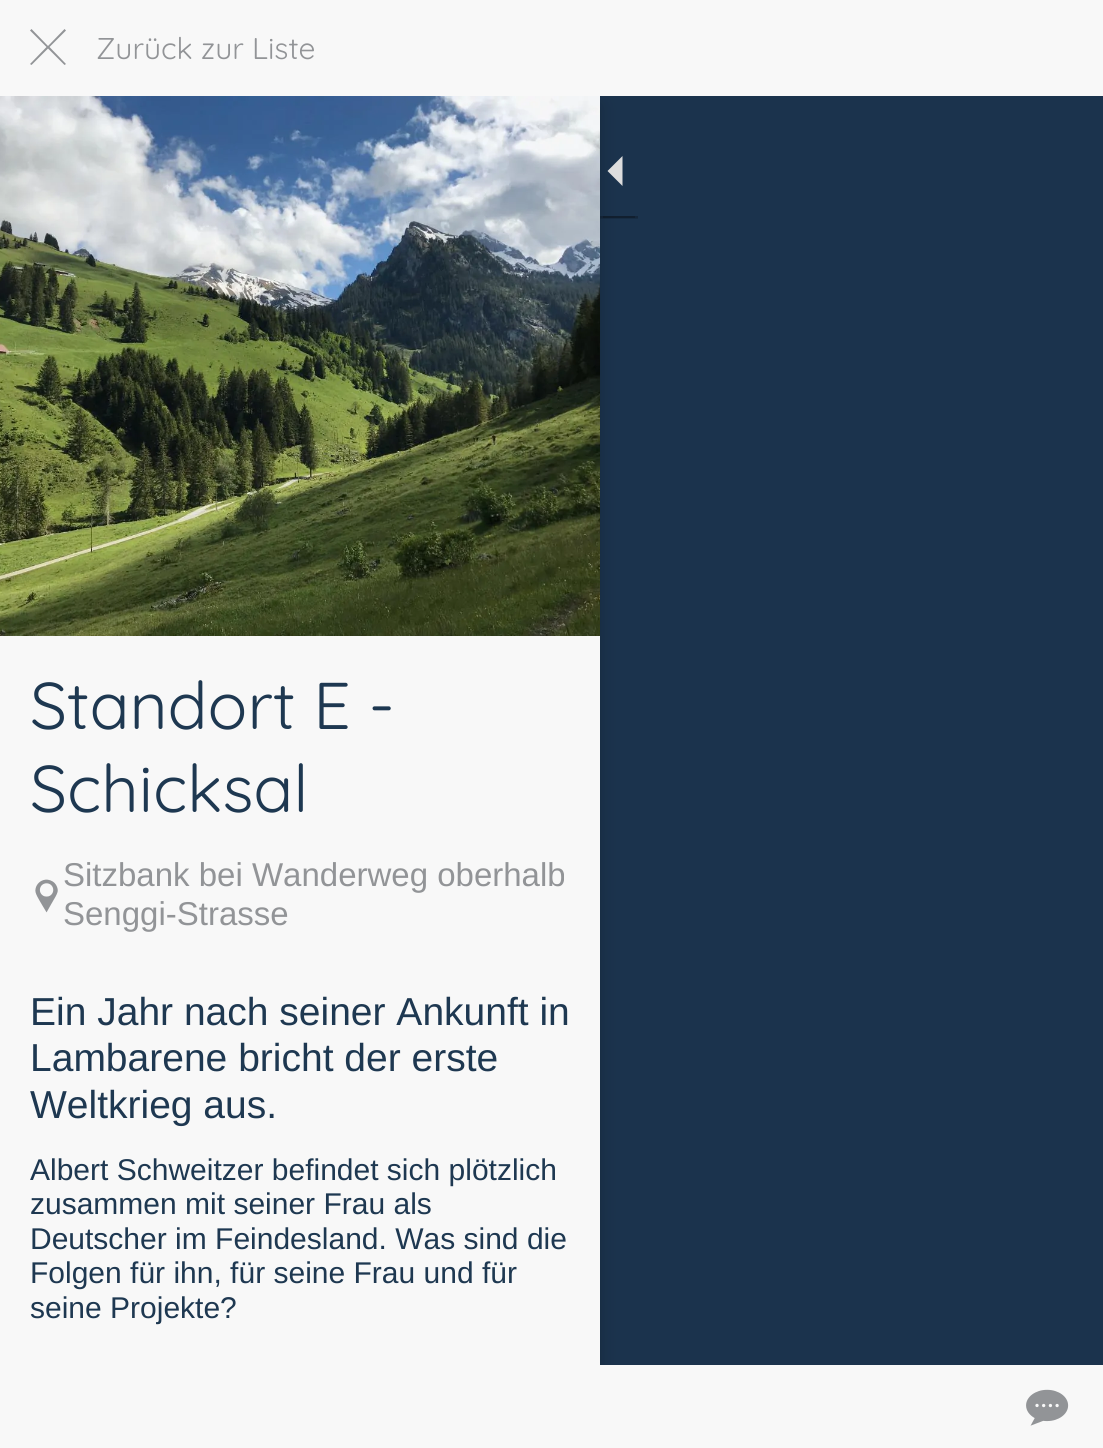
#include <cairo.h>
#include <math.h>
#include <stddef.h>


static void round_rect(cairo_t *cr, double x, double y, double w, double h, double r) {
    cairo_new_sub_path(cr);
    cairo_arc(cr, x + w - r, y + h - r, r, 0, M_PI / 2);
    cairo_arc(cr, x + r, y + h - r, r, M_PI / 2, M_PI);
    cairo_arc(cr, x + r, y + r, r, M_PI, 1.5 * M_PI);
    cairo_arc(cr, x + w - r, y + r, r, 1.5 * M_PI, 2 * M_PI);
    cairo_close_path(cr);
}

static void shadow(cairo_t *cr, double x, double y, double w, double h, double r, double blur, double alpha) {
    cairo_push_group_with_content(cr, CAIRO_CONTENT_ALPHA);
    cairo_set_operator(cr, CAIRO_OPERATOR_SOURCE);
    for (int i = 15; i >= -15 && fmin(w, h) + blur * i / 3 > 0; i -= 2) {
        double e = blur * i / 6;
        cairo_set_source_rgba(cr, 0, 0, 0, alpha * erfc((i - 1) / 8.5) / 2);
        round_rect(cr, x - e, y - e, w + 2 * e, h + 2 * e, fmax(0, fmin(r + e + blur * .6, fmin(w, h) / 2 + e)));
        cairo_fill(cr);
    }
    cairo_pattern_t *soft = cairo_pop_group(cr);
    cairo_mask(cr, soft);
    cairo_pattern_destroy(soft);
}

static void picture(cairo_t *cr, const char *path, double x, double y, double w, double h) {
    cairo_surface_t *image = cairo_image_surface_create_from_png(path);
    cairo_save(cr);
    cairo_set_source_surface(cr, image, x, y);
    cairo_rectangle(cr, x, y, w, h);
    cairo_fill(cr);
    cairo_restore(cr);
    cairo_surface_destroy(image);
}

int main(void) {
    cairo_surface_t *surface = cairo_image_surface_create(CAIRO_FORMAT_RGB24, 1103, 1448);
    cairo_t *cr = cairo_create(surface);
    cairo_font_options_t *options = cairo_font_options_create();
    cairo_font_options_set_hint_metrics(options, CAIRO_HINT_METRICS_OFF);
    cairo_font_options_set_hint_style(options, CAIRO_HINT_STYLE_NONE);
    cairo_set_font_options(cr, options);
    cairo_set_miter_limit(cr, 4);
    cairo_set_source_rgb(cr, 0.106, 0.2, 0.302);
    cairo_paint(cr);
    cairo_set_source_rgb(cr, 0, 0, 0);
    shadow(cr, 0, 105, 600, 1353, 0, 9, 0.2);
    cairo_set_source_rgb(cr, 0.969, 0.969, 0.969);
    cairo_rectangle(cr, 0, 0, 1103, 96);
    cairo_fill(cr);
    cairo_set_source_rgb(cr, 0.573, 0.58, 0.592);
    cairo_new_path(cr);
    cairo_move_to(cr, 66, 30.5);
    cairo_line_to(cr, 64.5, 29);
    cairo_line_to(cr, 48, 46);
    cairo_line_to(cr, 31.5, 29);
    cairo_line_to(cr, 30, 30.5);
    cairo_line_to(cr, 46.5, 47);
    cairo_line_to(cr, 30, 64);
    cairo_line_to(cr, 31.5, 65);
    cairo_line_to(cr, 48, 48.5);
    cairo_line_to(cr, 64.5, 65);
    cairo_line_to(cr, 66, 64);
    cairo_line_to(cr, 49.5, 47);
    cairo_close_path(cr);
    cairo_fill(cr);
    cairo_select_font_face(cr, "Quicksand Light", CAIRO_FONT_SLANT_NORMAL, CAIRO_FONT_WEIGHT_NORMAL);
    cairo_set_font_size(cr, 30);
    cairo_move_to(cr, 96, 59);
    cairo_show_text(cr, "Zurück zur Liste");
    cairo_set_source_rgba(cr, 0, 0, 0, 0.12);
    cairo_new_path(cr);
    cairo_move_to(cr, 600, 216);
    cairo_line_to(cr, 600, 218);
    cairo_line_to(cr, 638, 218);
    cairo_line_to(cr, 638, 128);
    cairo_line_to(cr, 638, 216);
    cairo_close_path(cr);
    cairo_fill(cr);
    cairo_set_source_rgba(cr, 0, 0, 0, 0.14);
    cairo_new_path(cr);
    cairo_move_to(cr, 600, 216);
    cairo_line_to(cr, 600, 219);
    cairo_line_to(cr, 638, 219);
    cairo_line_to(cr, 638, 129);
    cairo_line_to(cr, 638, 216);
    cairo_close_path(cr);
    cairo_fill(cr);
    cairo_set_source_rgba(cr, 0, 0, 0, 0.2);
    cairo_rectangle(cr, 603, 216, 32, 2);
    cairo_fill(cr);
    cairo_set_source_rgb(cr, 0.867, 0.867, 0.867);
    cairo_new_path(cr);
    cairo_move_to(cr, 622.5, 156);
    cairo_line_to(cr, 622.5, 186);
    cairo_line_to(cr, 607.5, 171);
    cairo_close_path(cr);
    cairo_fill(cr);
    picture(cr, "img1.png", 0, 96, 600, 540);
    cairo_set_source_rgb(cr, 0.969, 0.969, 0.969);
    cairo_rectangle(cr, 0, 636, 600, 729);
    cairo_fill(cr);
    cairo_set_font_size(cr, 66);
    cairo_set_source_rgb(cr, 0.118, 0.22, 0.318);
    cairo_move_to(cr, 30, 729);
    cairo_show_text(cr, "Standort E -");
    cairo_move_to(cr, 30, 812);
    cairo_show_text(cr, "Schicksal");
    picture(cr, "img2.png", 35, 879, 23, 34);
    cairo_select_font_face(cr, "Liberation Sans", CAIRO_FONT_SLANT_NORMAL, CAIRO_FONT_WEIGHT_NORMAL);
    cairo_set_font_size(cr, 33);
    cairo_set_source_rgb(cr, 0.573, 0.58, 0.592);
    cairo_move_to(cr, 63, 886);
    cairo_show_text(cr, "Sitzbank bei Wanderweg oberhalb");
    cairo_move_to(cr, 63, 925);
    cairo_show_text(cr, "Senggi-Strasse");
    cairo_set_font_size(cr, 39);
    cairo_set_source_rgb(cr, 0.118, 0.22, 0.318);
    cairo_move_to(cr, 30, 1025);
    cairo_show_text(cr, "Ein Jahr nach seiner Ankunft in");
    cairo_move_to(cr, 30, 1071);
    cairo_show_text(cr, "Lambarene bricht der erste");
    cairo_move_to(cr, 30, 1118);
    cairo_show_text(cr, "Weltkrieg aus.");
    cairo_set_font_size(cr, 30);
    cairo_move_to(cr, 30, 1180);
    cairo_show_text(cr, "Albert Schweitzer befindet sich plötzlich");
    cairo_move_to(cr, 30, 1214);
    cairo_show_text(cr, "zusammen mit seiner Frau als");
    cairo_move_to(cr, 30, 1249);
    cairo_show_text(cr, "Deutscher im Feindesland. Was sind die");
    cairo_move_to(cr, 30, 1283);
    cairo_show_text(cr, "Folgen für ihn, für seine Frau und für");
    cairo_move_to(cr, 30, 1318);
    cairo_show_text(cr, "seine Projekte?");
    cairo_set_source_rgb(cr, 0.969, 0.969, 0.969);
    cairo_rectangle(cr, 0, 1365, 1103, 83);
    cairo_fill(cr);
    picture(cr, "img3.png", 1026, 1389, 43, 37);
    cairo_surface_write_to_png(surface, "page.png");
    cairo_font_options_destroy(options);
    cairo_destroy(cr);
    cairo_surface_destroy(surface);
    return 0;
}
